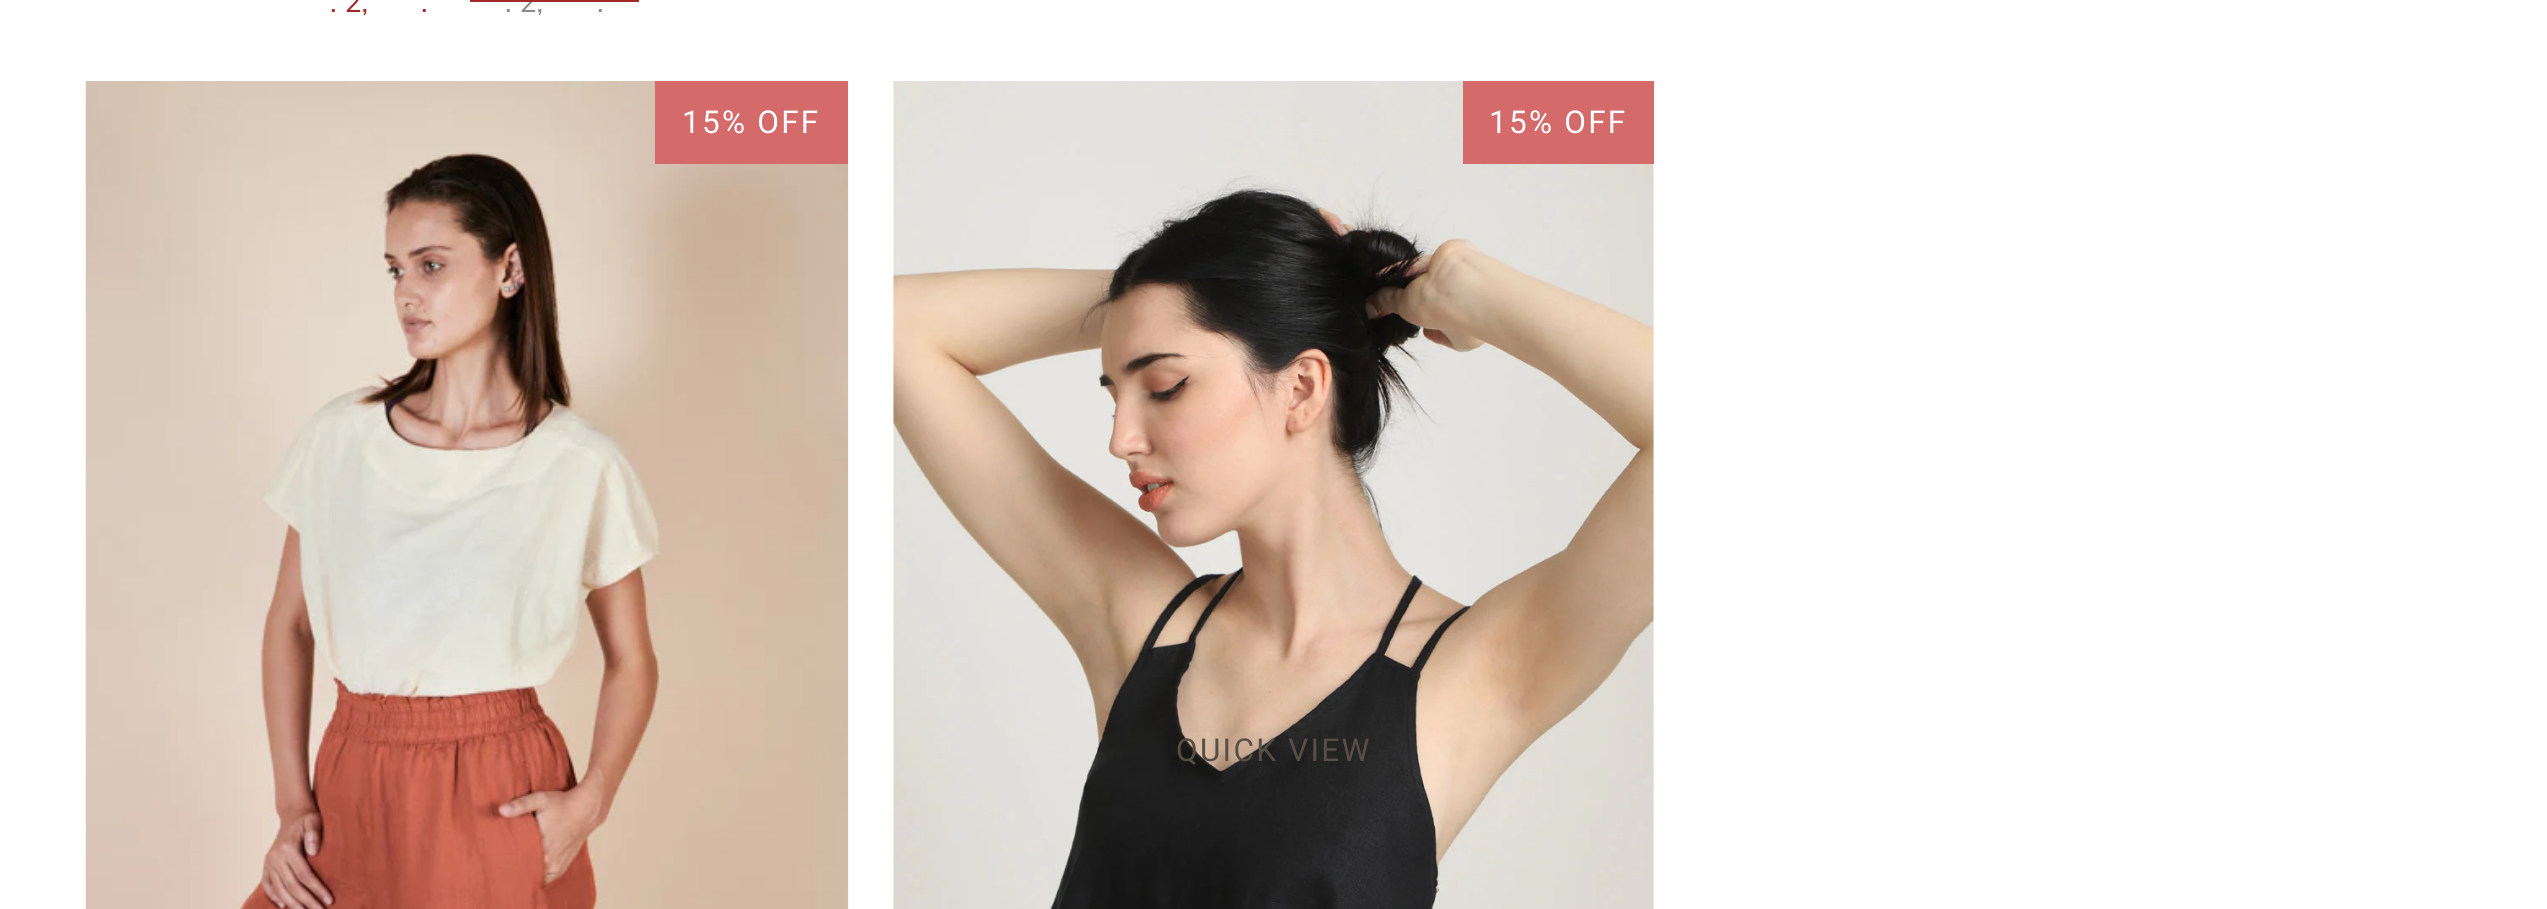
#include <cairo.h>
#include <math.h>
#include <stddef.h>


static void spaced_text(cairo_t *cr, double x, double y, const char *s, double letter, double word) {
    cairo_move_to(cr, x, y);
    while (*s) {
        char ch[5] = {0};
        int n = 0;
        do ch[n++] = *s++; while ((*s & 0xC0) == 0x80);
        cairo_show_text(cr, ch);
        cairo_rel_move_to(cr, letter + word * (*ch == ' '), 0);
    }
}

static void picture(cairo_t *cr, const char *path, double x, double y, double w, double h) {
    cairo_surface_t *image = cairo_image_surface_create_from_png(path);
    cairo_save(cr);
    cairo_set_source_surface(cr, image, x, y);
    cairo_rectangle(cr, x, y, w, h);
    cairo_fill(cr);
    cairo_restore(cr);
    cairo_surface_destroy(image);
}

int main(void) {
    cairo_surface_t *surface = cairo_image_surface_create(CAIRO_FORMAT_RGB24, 2547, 909);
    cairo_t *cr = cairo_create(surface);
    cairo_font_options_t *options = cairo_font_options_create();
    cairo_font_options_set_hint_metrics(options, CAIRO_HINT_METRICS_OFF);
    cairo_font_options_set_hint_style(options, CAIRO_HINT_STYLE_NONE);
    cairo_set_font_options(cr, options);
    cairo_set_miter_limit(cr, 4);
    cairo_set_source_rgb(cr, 1, 1, 1);
    cairo_paint(cr);
    cairo_select_font_face(cr, "Muli", CAIRO_FONT_SLANT_NORMAL, CAIRO_FONT_WEIGHT_NORMAL);
    cairo_set_font_size(cr, 29);
    cairo_set_source_rgb(cr, 0.639, 0.157, 0.157);
    cairo_move_to(cr, 330, 12);
    cairo_show_text(cr, ". 2,");
    cairo_move_to(cr, 421, 12);
    cairo_show_text(cr, ".");
    cairo_set_source_rgb(cr, 0.549, 0.545, 0.545);
    cairo_move_to(cr, 505, 12);
    cairo_show_text(cr, ". 2,");
    cairo_set_source_rgb(cr, 0.639, 0.157, 0.157);
    cairo_rectangle(cr, 470, 0, 169, 2);
    cairo_fill(cr);
    cairo_set_source_rgb(cr, 0.549, 0.545, 0.545);
    cairo_move_to(cr, 597, 12);
    cairo_show_text(cr, ".");
    picture(cr, "img1.png", 85, 81, 764, 828);
    cairo_set_source_rgb(cr, 0.831, 0.416, 0.416);
    cairo_rectangle(cr, 655, 81, 193, 83);
    cairo_fill(cr);
    cairo_select_font_face(cr, "Roboto", CAIRO_FONT_SLANT_NORMAL, CAIRO_FONT_WEIGHT_NORMAL);
    cairo_set_font_size(cr, 31.5);
    cairo_set_source_rgb(cr, 1, 1, 1);
    spaced_text(cr, 682, 133, "15% OFF", 2.25, 0);
    picture(cr, "img2.png", 893, 81, 761, 828);
    cairo_set_source_rgb(cr, 0.831, 0.416, 0.416);
    cairo_rectangle(cr, 1463, 81, 191, 83);
    cairo_fill(cr);
    cairo_set_source_rgb(cr, 1, 1, 1);
    spaced_text(cr, 1489, 133, "15% OFF", 2.25, 0);
    cairo_set_source_rgb(cr, 0.341, 0.306, 0.275);
    spaced_text(cr, 1176, 761, "QUICK VIEW", 2.25, 0);
    cairo_surface_write_to_png(surface, "page.png");
    cairo_font_options_destroy(options);
    cairo_destroy(cr);
    cairo_surface_destroy(surface);
    return 0;
}
